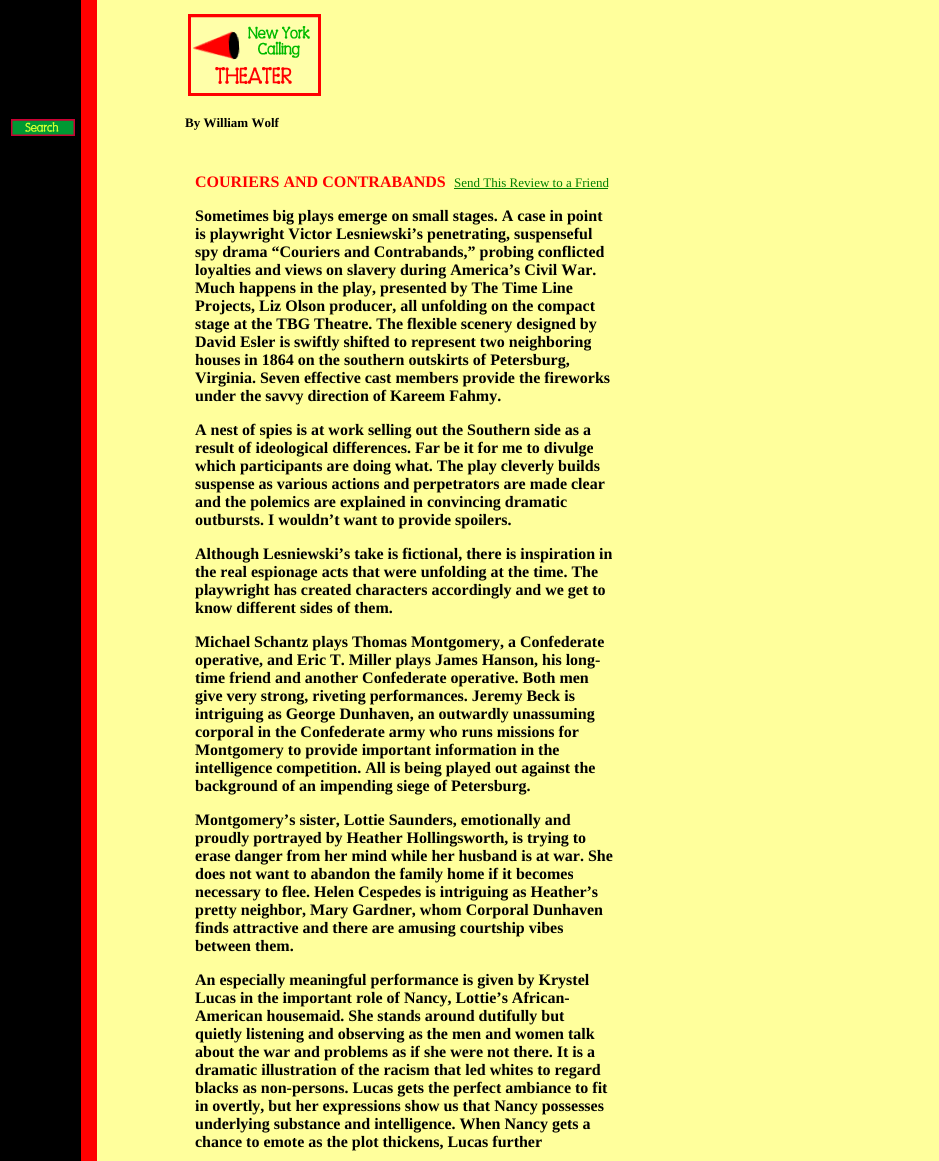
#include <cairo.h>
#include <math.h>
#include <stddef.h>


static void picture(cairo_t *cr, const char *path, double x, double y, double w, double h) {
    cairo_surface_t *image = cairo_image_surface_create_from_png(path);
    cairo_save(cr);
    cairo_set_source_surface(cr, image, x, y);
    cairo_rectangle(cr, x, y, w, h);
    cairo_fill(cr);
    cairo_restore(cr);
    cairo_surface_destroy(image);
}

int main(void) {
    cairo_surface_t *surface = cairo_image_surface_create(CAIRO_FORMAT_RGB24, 939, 1161);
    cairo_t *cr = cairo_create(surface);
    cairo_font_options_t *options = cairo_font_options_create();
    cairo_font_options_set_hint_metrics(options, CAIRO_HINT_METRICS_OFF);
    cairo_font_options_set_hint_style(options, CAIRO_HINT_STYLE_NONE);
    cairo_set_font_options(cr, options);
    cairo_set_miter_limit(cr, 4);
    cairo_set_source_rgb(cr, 1, 1, 1);
    cairo_paint(cr);
    picture(cr, "img1.png", 0, 0, 939, 1161);
    picture(cr, "img2.png", 11, 119, 64, 17);
    picture(cr, "img3.png", 188, 14, 133, 82);
    cairo_select_font_face(cr, "Liberation Serif", CAIRO_FONT_SLANT_NORMAL, CAIRO_FONT_WEIGHT_BOLD);
    cairo_set_font_size(cr, 13);
    cairo_set_source_rgb(cr, 0, 0, 0);
    cairo_move_to(cr, 185, 127);
    cairo_show_text(cr, "By William Wolf");
    cairo_set_font_size(cr, 16);
    cairo_set_source_rgb(cr, 1, 0, 0);
    cairo_move_to(cr, 195, 187);
    cairo_show_text(cr, "COURIERS AND CONTRABANDS");
    cairo_select_font_face(cr, "Liberation Serif", CAIRO_FONT_SLANT_NORMAL, CAIRO_FONT_WEIGHT_NORMAL);
    cairo_set_font_size(cr, 13);
    cairo_set_source_rgb(cr, 0, 0.502, 0);
    cairo_move_to(cr, 454, 187);
    cairo_show_text(cr, "Send This Review to a Friend");
    cairo_rectangle(cr, 454, 188, 154, 1);
    cairo_fill(cr);
    cairo_select_font_face(cr, "Liberation Serif", CAIRO_FONT_SLANT_NORMAL, CAIRO_FONT_WEIGHT_BOLD);
    cairo_set_font_size(cr, 16);
    cairo_set_source_rgb(cr, 0, 0, 0);
    cairo_move_to(cr, 195, 221);
    cairo_show_text(cr, "Sometimes big plays emerge on small stages. A case in point");
    cairo_move_to(cr, 195, 239);
    cairo_show_text(cr, "is playwright Victor Lesniewski’s penetrating, suspenseful");
    cairo_move_to(cr, 195, 257);
    cairo_show_text(cr, "spy drama “Couriers and Contrabands,” probing conflicted");
    cairo_move_to(cr, 195, 275);
    cairo_show_text(cr, "loyalties and views on slavery during America’s Civil War.");
    cairo_move_to(cr, 195, 293);
    cairo_show_text(cr, "Much happens in the play, presented by The Time Line");
    cairo_move_to(cr, 195, 311);
    cairo_show_text(cr, "Projects, Liz Olson producer, all unfolding on the compact");
    cairo_move_to(cr, 195, 329);
    cairo_show_text(cr, "stage at the TBG Theatre. The flexible scenery designed by");
    cairo_move_to(cr, 195, 347);
    cairo_show_text(cr, "David Esler is swiftly shifted to represent two neighboring");
    cairo_move_to(cr, 195, 365);
    cairo_show_text(cr, "houses in 1864 on the southern outskirts of Petersburg,");
    cairo_move_to(cr, 195, 383);
    cairo_show_text(cr, "Virginia. Seven effective cast members provide the fireworks");
    cairo_move_to(cr, 195, 401);
    cairo_show_text(cr, "under the savvy direction of Kareem Fahmy.");
    cairo_move_to(cr, 195, 435);
    cairo_show_text(cr, "A nest of spies is at work selling out the Southern side as a");
    cairo_move_to(cr, 195, 453);
    cairo_show_text(cr, "result of ideological differences. Far be it for me to divulge");
    cairo_move_to(cr, 195, 471);
    cairo_show_text(cr, "which participants are doing what. The play cleverly builds");
    cairo_move_to(cr, 195, 489);
    cairo_show_text(cr, "suspense as various actions and perpetrators are made clear");
    cairo_move_to(cr, 195, 507);
    cairo_show_text(cr, "and the polemics are explained in convincing dramatic");
    cairo_move_to(cr, 195, 525);
    cairo_show_text(cr, "outbursts. I wouldn’t want to provide spoilers.");
    cairo_move_to(cr, 195, 559);
    cairo_show_text(cr, "Although Lesniewski’s take is fictional, there is inspiration in");
    cairo_move_to(cr, 195, 577);
    cairo_show_text(cr, "the real espionage acts that were unfolding at the time. The");
    cairo_move_to(cr, 195, 595);
    cairo_show_text(cr, "playwright has created characters accordingly and we get to");
    cairo_move_to(cr, 195, 613);
    cairo_show_text(cr, "know different sides of them.");
    cairo_move_to(cr, 195, 647);
    cairo_show_text(cr, "Michael Schantz plays Thomas Montgomery, a Confederate");
    cairo_move_to(cr, 195, 665);
    cairo_show_text(cr, "operative, and Eric T. Miller plays James Hanson, his long-");
    cairo_move_to(cr, 195, 683);
    cairo_show_text(cr, "time friend and another Confederate operative. Both men");
    cairo_move_to(cr, 195, 701);
    cairo_show_text(cr, "give very strong, riveting performances. Jeremy Beck is");
    cairo_move_to(cr, 195, 719);
    cairo_show_text(cr, "intriguing as George Dunhaven, an outwardly unassuming");
    cairo_move_to(cr, 195, 737);
    cairo_show_text(cr, "corporal in the Confederate army who runs missions for");
    cairo_move_to(cr, 195, 755);
    cairo_show_text(cr, "Montgomery to provide important information in the");
    cairo_move_to(cr, 195, 773);
    cairo_show_text(cr, "intelligence competition. All is being played out against the");
    cairo_move_to(cr, 195, 791);
    cairo_show_text(cr, "background of an impending siege of Petersburg.");
    cairo_move_to(cr, 195, 825);
    cairo_show_text(cr, "Montgomery’s sister, Lottie Saunders, emotionally and");
    cairo_move_to(cr, 195, 843);
    cairo_show_text(cr, "proudly portrayed by Heather Hollingsworth, is trying to");
    cairo_move_to(cr, 195, 861);
    cairo_show_text(cr, "erase danger from her mind while her husband is at war. She");
    cairo_move_to(cr, 195, 879);
    cairo_show_text(cr, "does not want to abandon the family home if it becomes");
    cairo_move_to(cr, 195, 897);
    cairo_show_text(cr, "necessary to flee. Helen Cespedes is intriguing as Heather’s");
    cairo_move_to(cr, 195, 915);
    cairo_show_text(cr, "pretty neighbor, Mary Gardner, whom Corporal Dunhaven");
    cairo_move_to(cr, 195, 933);
    cairo_show_text(cr, "finds attractive and there are amusing courtship vibes");
    cairo_move_to(cr, 195, 951);
    cairo_show_text(cr, "between them.");
    cairo_move_to(cr, 195, 985);
    cairo_show_text(cr, "An especially meaningful performance is given by Krystel");
    cairo_move_to(cr, 195, 1003);
    cairo_show_text(cr, "Lucas in the important role of Nancy, Lottie’s African-");
    cairo_move_to(cr, 195, 1021);
    cairo_show_text(cr, "American housemaid. She stands around dutifully but");
    cairo_move_to(cr, 195, 1039);
    cairo_show_text(cr, "quietly listening and observing as the men and women talk");
    cairo_move_to(cr, 195, 1057);
    cairo_show_text(cr, "about the war and problems as if she were not there. It is a");
    cairo_move_to(cr, 195, 1075);
    cairo_show_text(cr, "dramatic illustration of the racism that led whites to regard");
    cairo_move_to(cr, 195, 1093);
    cairo_show_text(cr, "blacks as non-persons. Lucas gets the perfect ambiance to fit");
    cairo_move_to(cr, 195, 1111);
    cairo_show_text(cr, "in overtly, but her expressions show us that Nancy possesses");
    cairo_move_to(cr, 195, 1129);
    cairo_show_text(cr, "underlying substance and intelligence. When Nancy gets a");
    cairo_move_to(cr, 195, 1147);
    cairo_show_text(cr, "chance to emote as the plot thickens, Lucas further");
    cairo_surface_write_to_png(surface, "page.png");
    cairo_font_options_destroy(options);
    cairo_destroy(cr);
    cairo_surface_destroy(surface);
    return 0;
}
